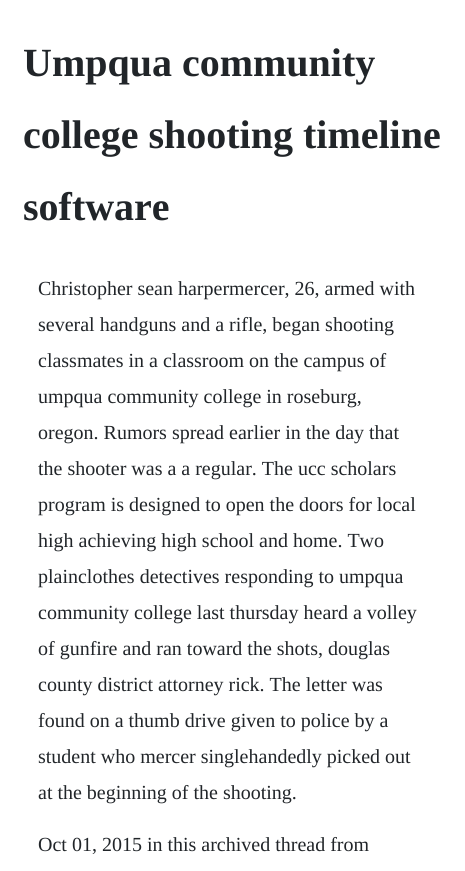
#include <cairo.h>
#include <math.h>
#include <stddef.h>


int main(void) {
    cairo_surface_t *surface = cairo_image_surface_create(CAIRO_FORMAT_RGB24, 465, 871);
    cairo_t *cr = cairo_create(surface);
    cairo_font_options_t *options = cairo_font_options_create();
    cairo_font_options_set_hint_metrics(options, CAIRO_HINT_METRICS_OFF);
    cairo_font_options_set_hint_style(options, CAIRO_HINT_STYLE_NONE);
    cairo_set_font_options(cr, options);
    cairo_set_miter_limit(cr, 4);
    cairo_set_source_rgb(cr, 1, 1, 1);
    cairo_paint(cr);
    cairo_select_font_face(cr, "Liberation Serif", CAIRO_FONT_SLANT_NORMAL, CAIRO_FONT_WEIGHT_BOLD);
    cairo_set_font_size(cr, 40);
    cairo_set_source_rgb(cr, 0.129, 0.145, 0.161);
    cairo_move_to(cr, 23, 76);
    cairo_show_text(cr, "Umpqua community");
    cairo_move_to(cr, 23, 148);
    cairo_show_text(cr, "college shooting timeline");
    cairo_move_to(cr, 23, 220);
    cairo_show_text(cr, "software");
    cairo_select_font_face(cr, "Liberation Serif", CAIRO_FONT_SLANT_NORMAL, CAIRO_FONT_WEIGHT_NORMAL);
    cairo_set_font_size(cr, 20);
    cairo_move_to(cr, 38, 295);
    cairo_show_text(cr, "Christopher sean harpermercer, 26, armed with");
    cairo_move_to(cr, 38, 331);
    cairo_show_text(cr, "several handguns and a rifle, began shooting");
    cairo_move_to(cr, 38, 367);
    cairo_show_text(cr, "classmates in a classroom on the campus of");
    cairo_move_to(cr, 38, 403);
    cairo_show_text(cr, "umpqua community college in roseburg,");
    cairo_move_to(cr, 38, 439);
    cairo_show_text(cr, "oregon. Rumors spread earlier in the day that");
    cairo_move_to(cr, 38, 475);
    cairo_show_text(cr, "the shooter was a a regular. The ucc scholars");
    cairo_move_to(cr, 38, 511);
    cairo_show_text(cr, "program is designed to open the doors for local");
    cairo_move_to(cr, 38, 547);
    cairo_show_text(cr, "high achieving high school and home. Two");
    cairo_move_to(cr, 38, 583);
    cairo_show_text(cr, "plainclothes detectives responding to umpqua");
    cairo_move_to(cr, 38, 619);
    cairo_show_text(cr, "community college last thursday heard a volley");
    cairo_move_to(cr, 38, 655);
    cairo_show_text(cr, "of gunfire and ran toward the shots, douglas");
    cairo_move_to(cr, 38, 691);
    cairo_show_text(cr, "county district attorney rick. The letter was");
    cairo_move_to(cr, 38, 727);
    cairo_show_text(cr, "found on a thumb drive given to police by a");
    cairo_move_to(cr, 38, 763);
    cairo_show_text(cr, "student who mercer singlehandedly picked out");
    cairo_move_to(cr, 38, 799);
    cairo_show_text(cr, "at the beginning of the shooting.");
    cairo_move_to(cr, 38, 851);
    cairo_show_text(cr, "Oct 01, 2015 in this archived thread from");
    cairo_surface_write_to_png(surface, "page.png");
    cairo_font_options_destroy(options);
    cairo_destroy(cr);
    cairo_surface_destroy(surface);
    return 0;
}
